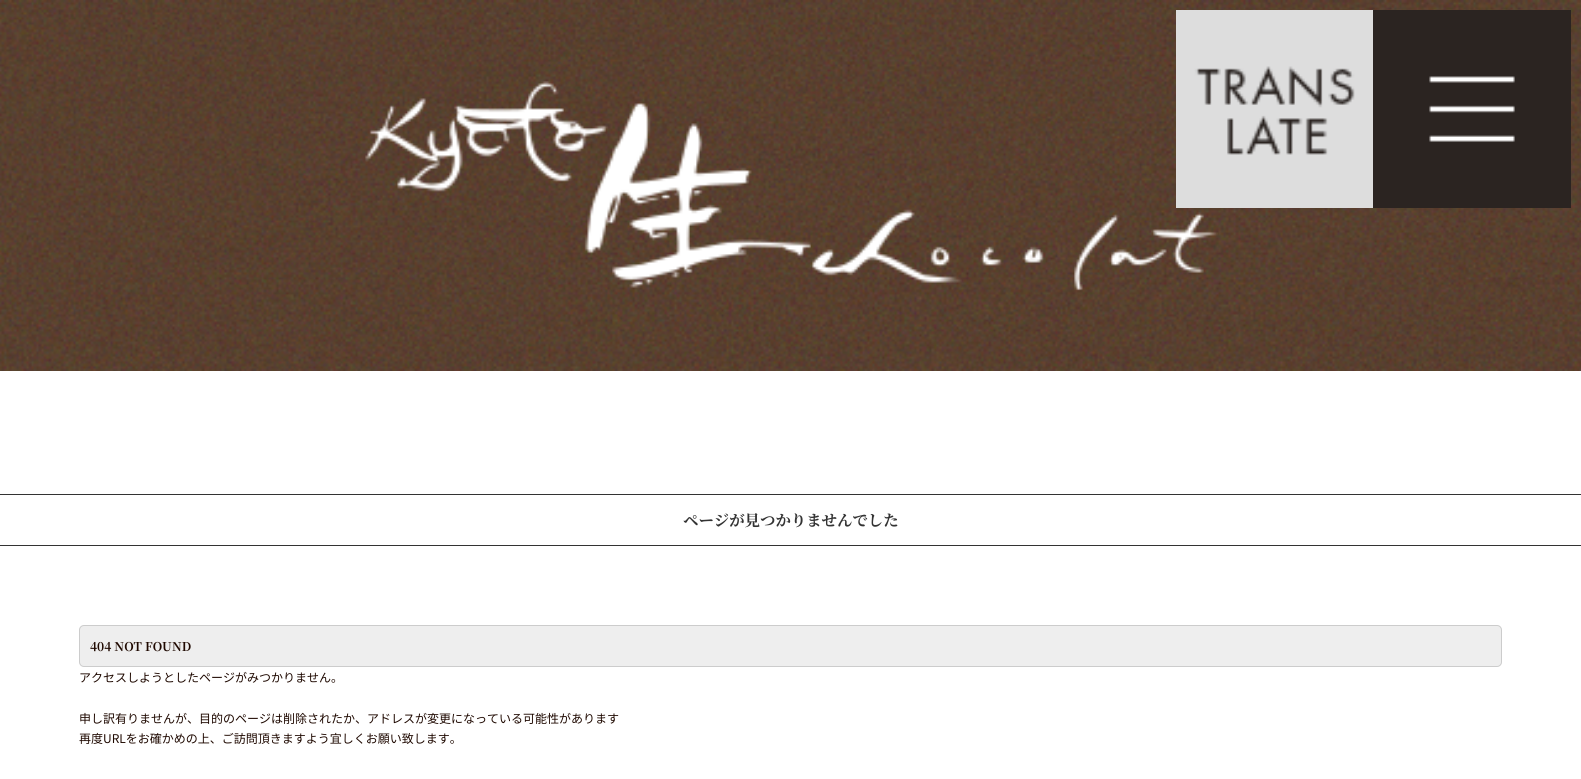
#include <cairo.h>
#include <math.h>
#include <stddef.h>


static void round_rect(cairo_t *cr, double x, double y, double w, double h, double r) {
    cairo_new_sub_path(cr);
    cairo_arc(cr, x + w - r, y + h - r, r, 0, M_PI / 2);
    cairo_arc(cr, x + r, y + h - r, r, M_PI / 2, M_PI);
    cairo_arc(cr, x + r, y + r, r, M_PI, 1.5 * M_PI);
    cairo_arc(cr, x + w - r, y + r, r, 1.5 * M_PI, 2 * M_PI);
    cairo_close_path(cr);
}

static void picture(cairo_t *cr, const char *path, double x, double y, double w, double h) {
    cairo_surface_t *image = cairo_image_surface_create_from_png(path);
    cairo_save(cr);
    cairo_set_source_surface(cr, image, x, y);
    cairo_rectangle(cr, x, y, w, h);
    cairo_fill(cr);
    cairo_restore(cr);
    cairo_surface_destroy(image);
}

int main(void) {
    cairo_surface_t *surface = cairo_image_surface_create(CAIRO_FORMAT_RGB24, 1581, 779);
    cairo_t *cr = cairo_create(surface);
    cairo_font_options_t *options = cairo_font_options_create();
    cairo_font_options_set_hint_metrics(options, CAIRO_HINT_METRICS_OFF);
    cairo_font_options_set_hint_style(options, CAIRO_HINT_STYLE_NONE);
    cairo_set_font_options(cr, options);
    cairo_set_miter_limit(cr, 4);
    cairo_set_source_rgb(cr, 1, 1, 1);
    cairo_paint(cr);
    picture(cr, "img3.png", 0, 0, 1581, 371);
    picture(cr, "img4.png", 365, 81, 853, 210);
    picture(cr, "img1.png", 1176, 10, 197, 198);
    picture(cr, "img2.png", 1373, 10, 198, 198);
    cairo_set_source_rgb(cr, 0.2, 0.2, 0.2);
    cairo_rectangle(cr, 0, 494, 1581, 1);
    cairo_fill(cr);
    cairo_rectangle(cr, 0, 545, 1581, 1);
    cairo_fill(cr);
    cairo_select_font_face(cr, "Noto Serif JP", CAIRO_FONT_SLANT_NORMAL, CAIRO_FONT_WEIGHT_BOLD);
    cairo_set_font_size(cr, 15.4);
    cairo_move_to(cr, 683, 526);
    cairo_show_text(cr, "ページが見つかりませんでした");
    cairo_set_source_rgb(cr, 0.933, 0.933, 0.933);
    round_rect(cr, 79.5, 625.5, 1422, 41, 4.5);
    cairo_fill_preserve(cr);
    cairo_set_source_rgb(cr, 0.8, 0.8, 0.8);
    cairo_set_line_width(cr, 1);
    cairo_stroke(cr);
    cairo_set_font_size(cr, 12);
    cairo_set_source_rgb(cr, 0.122, 0.039, 0.004);
    cairo_move_to(cr, 90, 651);
    cairo_show_text(cr, "404 NOT FOUND");
    cairo_select_font_face(cr, "Noto Sans JP", CAIRO_FONT_SLANT_NORMAL, CAIRO_FONT_WEIGHT_NORMAL);
    cairo_move_to(cr, 79, 682);
    cairo_show_text(cr, "アクセスしようとしたページがみつかりません。");
    cairo_move_to(cr, 79, 723);
    cairo_show_text(cr, "申し訳有りませんが、目的のページは削除されたか、アドレスが変更になっている可能性があります");
    cairo_move_to(cr, 79, 743);
    cairo_show_text(cr, "再度URLをお確かめの上、ご訪問頂きますよう宜しくお願い致します。");
    cairo_surface_write_to_png(surface, "page.png");
    cairo_font_options_destroy(options);
    cairo_destroy(cr);
    cairo_surface_destroy(surface);
    return 0;
}
